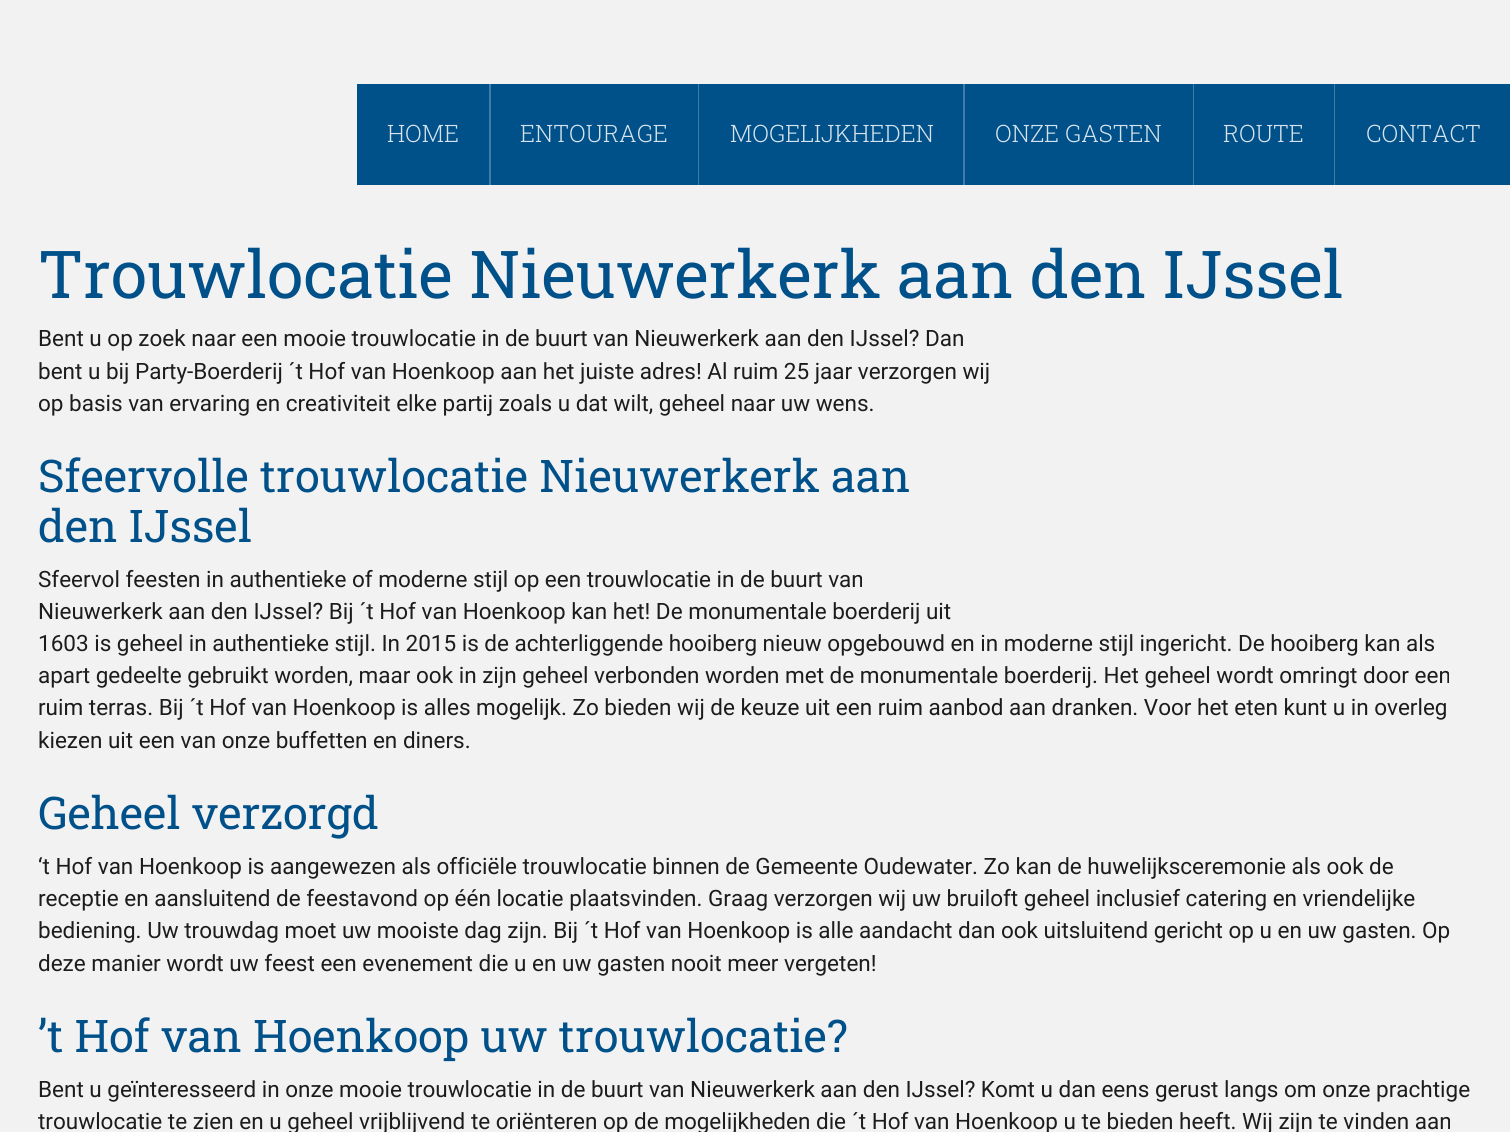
#include <cairo.h>
#include <math.h>
#include <stddef.h>


int main(void) {
    cairo_surface_t *surface = cairo_image_surface_create(CAIRO_FORMAT_RGB24, 1510, 1132);
    cairo_t *cr = cairo_create(surface);
    cairo_font_options_t *options = cairo_font_options_create();
    cairo_font_options_set_hint_metrics(options, CAIRO_HINT_METRICS_OFF);
    cairo_font_options_set_hint_style(options, CAIRO_HINT_STYLE_NONE);
    cairo_set_font_options(cr, options);
    cairo_set_miter_limit(cr, 4);
    cairo_set_source_rgb(cr, 0.949, 0.949, 0.949);
    cairo_paint(cr);
    cairo_set_source_rgb(cr, 0, 0.314, 0.541);
    cairo_rectangle(cr, 357, 84, 132, 101);
    cairo_fill(cr);
    cairo_set_source_rgb(cr, 0.251, 0.486, 0.655);
    cairo_rectangle(cr, 489, 84, 2, 101);
    cairo_fill(cr);
    cairo_select_font_face(cr, "Roboto Slab Light", CAIRO_FONT_SLANT_NORMAL, CAIRO_FONT_WEIGHT_NORMAL);
    cairo_set_font_size(cr, 24);
    cairo_set_source_rgb(cr, 0.839, 0.89, 0.925);
    cairo_move_to(cr, 387, 142);
    cairo_show_text(cr, "HOME");
    cairo_set_source_rgb(cr, 0, 0.314, 0.541);
    cairo_rectangle(cr, 491, 84, 207, 101);
    cairo_fill(cr);
    cairo_set_source_rgb(cr, 0.251, 0.486, 0.655);
    cairo_rectangle(cr, 698, 84, 1, 101);
    cairo_fill(cr);
    cairo_set_source_rgb(cr, 0.839, 0.89, 0.925);
    cairo_move_to(cr, 520, 142);
    cairo_show_text(cr, "ENTOURAGE");
    cairo_set_source_rgb(cr, 0, 0.314, 0.541);
    cairo_rectangle(cr, 699, 84, 264, 101);
    cairo_fill(cr);
    cairo_set_source_rgb(cr, 0.251, 0.486, 0.655);
    cairo_rectangle(cr, 963, 84, 2, 101);
    cairo_fill(cr);
    cairo_set_source_rgb(cr, 0.839, 0.89, 0.925);
    cairo_move_to(cr, 730, 142);
    cairo_show_text(cr, "MOGELIJKHEDEN");
    cairo_set_source_rgb(cr, 0, 0.314, 0.541);
    cairo_rectangle(cr, 965, 84, 228, 101);
    cairo_fill(cr);
    cairo_set_source_rgb(cr, 0.251, 0.486, 0.655);
    cairo_rectangle(cr, 1193, 84, 1, 101);
    cairo_fill(cr);
    cairo_set_source_rgb(cr, 0.839, 0.89, 0.925);
    cairo_move_to(cr, 995, 142);
    cairo_show_text(cr, "ONZE GASTEN");
    cairo_set_source_rgb(cr, 0, 0.314, 0.541);
    cairo_rectangle(cr, 1194, 84, 140, 101);
    cairo_fill(cr);
    cairo_set_source_rgb(cr, 0.251, 0.486, 0.655);
    cairo_rectangle(cr, 1334, 84, 1, 101);
    cairo_fill(cr);
    cairo_set_source_rgb(cr, 0.839, 0.89, 0.925);
    cairo_move_to(cr, 1223, 142);
    cairo_show_text(cr, "ROUTE");
    cairo_set_source_rgb(cr, 0, 0.314, 0.541);
    cairo_rectangle(cr, 1335, 84, 175, 101);
    cairo_fill(cr);
    cairo_set_source_rgb(cr, 0.839, 0.89, 0.925);
    cairo_move_to(cr, 1366, 142);
    cairo_show_text(cr, "CONTACT");
    cairo_select_font_face(cr, "Roboto Slab", CAIRO_FONT_SLANT_NORMAL, CAIRO_FONT_WEIGHT_NORMAL);
    cairo_set_font_size(cr, 66);
    cairo_set_source_rgb(cr, 0, 0.314, 0.541);
    cairo_move_to(cr, 38, 298);
    cairo_show_text(cr, "Trouwlocatie Nieuwerkerk aan den IJssel");
    cairo_select_font_face(cr, "Roboto", CAIRO_FONT_SLANT_NORMAL, CAIRO_FONT_WEIGHT_NORMAL);
    cairo_set_font_size(cr, 22.5);
    cairo_set_source_rgb(cr, 0.11, 0.11, 0.11);
    cairo_move_to(cr, 38, 346);
    cairo_show_text(cr, "Bent u op zoek naar een mooie trouwlocatie in de buurt van Nieuwerkerk aan den IJssel? Dan");
    cairo_move_to(cr, 38, 379);
    cairo_show_text(cr, "bent u bij Party-Boerderij ´t Hof van Hoenkoop aan het juiste adres! Al ruim 25 jaar verzorgen wij");
    cairo_move_to(cr, 38, 411);
    cairo_show_text(cr, "op basis van ervaring en creativiteit elke partij zoals u dat wilt, geheel naar uw wens.");
    cairo_select_font_face(cr, "Roboto Slab", CAIRO_FONT_SLANT_NORMAL, CAIRO_FONT_WEIGHT_NORMAL);
    cairo_set_font_size(cr, 45);
    cairo_set_source_rgb(cr, 0, 0.314, 0.541);
    cairo_move_to(cr, 38, 492);
    cairo_show_text(cr, "Sfeervolle trouwlocatie Nieuwerkerk aan");
    cairo_move_to(cr, 38, 542);
    cairo_show_text(cr, "den IJssel");
    cairo_select_font_face(cr, "Roboto", CAIRO_FONT_SLANT_NORMAL, CAIRO_FONT_WEIGHT_NORMAL);
    cairo_set_font_size(cr, 22.5);
    cairo_set_source_rgb(cr, 0.11, 0.11, 0.11);
    cairo_move_to(cr, 38, 587);
    cairo_show_text(cr, "Sfeervol feesten in authentieke of moderne stijl op een trouwlocatie in de buurt van");
    cairo_move_to(cr, 38, 619);
    cairo_show_text(cr, "Nieuwerkerk aan den IJssel? Bij ´t Hof van Hoenkoop kan het! De monumentale boerderij uit");
    cairo_move_to(cr, 38, 651);
    cairo_show_text(cr, "1603 is geheel in authentieke stijl. In 2015 is de achterliggende hooiberg nieuw opgebouwd en in moderne stijl ingericht. De hooiberg kan als");
    cairo_move_to(cr, 38, 683);
    cairo_show_text(cr, "apart gedeelte gebruikt worden, maar ook in zijn geheel verbonden worden met de monumentale boerderij. Het geheel wordt omringt door een");
    cairo_move_to(cr, 38, 715);
    cairo_show_text(cr, "ruim terras. Bij ´t Hof van Hoenkoop is alles mogelijk. Zo bieden wij de keuze uit een ruim aanbod aan dranken. Voor het eten kunt u in overleg");
    cairo_move_to(cr, 38, 748);
    cairo_show_text(cr, "kiezen uit een van onze buffetten en diners.");
    cairo_select_font_face(cr, "Roboto Slab", CAIRO_FONT_SLANT_NORMAL, CAIRO_FONT_WEIGHT_NORMAL);
    cairo_set_font_size(cr, 45);
    cairo_set_source_rgb(cr, 0, 0.314, 0.541);
    cairo_move_to(cr, 38, 829);
    cairo_show_text(cr, "Geheel verzorgd");
    cairo_select_font_face(cr, "Roboto", CAIRO_FONT_SLANT_NORMAL, CAIRO_FONT_WEIGHT_NORMAL);
    cairo_set_font_size(cr, 22.5);
    cairo_set_source_rgb(cr, 0.11, 0.11, 0.11);
    cairo_move_to(cr, 38, 874);
    cairo_show_text(cr, "‘t Hof van Hoenkoop is aangewezen als officiële trouwlocatie binnen de Gemeente Oudewater. Zo kan de huwelijksceremonie als ook de");
    cairo_move_to(cr, 38, 906);
    cairo_show_text(cr, "receptie en aansluitend de feestavond op één locatie plaatsvinden. Graag verzorgen wij uw bruiloft geheel inclusief catering en vriendelijke");
    cairo_move_to(cr, 38, 938);
    cairo_show_text(cr, "bediening. Uw trouwdag moet uw mooiste dag zijn. Bij ´t Hof van Hoenkoop is alle aandacht dan ook uitsluitend gericht op u en uw gasten. Op");
    cairo_move_to(cr, 38, 971);
    cairo_show_text(cr, "deze manier wordt uw feest een evenement die u en uw gasten nooit meer vergeten!");
    cairo_select_font_face(cr, "Roboto Slab", CAIRO_FONT_SLANT_NORMAL, CAIRO_FONT_WEIGHT_NORMAL);
    cairo_set_font_size(cr, 45);
    cairo_set_source_rgb(cr, 0, 0.314, 0.541);
    cairo_move_to(cr, 38, 1052);
    cairo_show_text(cr, "’t Hof van Hoenkoop uw trouwlocatie?");
    cairo_select_font_face(cr, "Roboto", CAIRO_FONT_SLANT_NORMAL, CAIRO_FONT_WEIGHT_NORMAL);
    cairo_set_font_size(cr, 22.5);
    cairo_set_source_rgb(cr, 0.11, 0.11, 0.11);
    cairo_move_to(cr, 38, 1097);
    cairo_show_text(cr, "Bent u geïnteresseerd in onze mooie trouwlocatie in de buurt van Nieuwerkerk aan den IJssel? Komt u dan eens gerust langs om onze prachtige");
    cairo_move_to(cr, 38, 1129);
    cairo_show_text(cr, "trouwlocatie te zien en u geheel vrijblijvend te oriënteren op de mogelijkheden die ´t Hof van Hoenkoop u te bieden heeft. Wij zijn te vinden aan");
    cairo_surface_write_to_png(surface, "page.png");
    cairo_font_options_destroy(options);
    cairo_destroy(cr);
    cairo_surface_destroy(surface);
    return 0;
}
